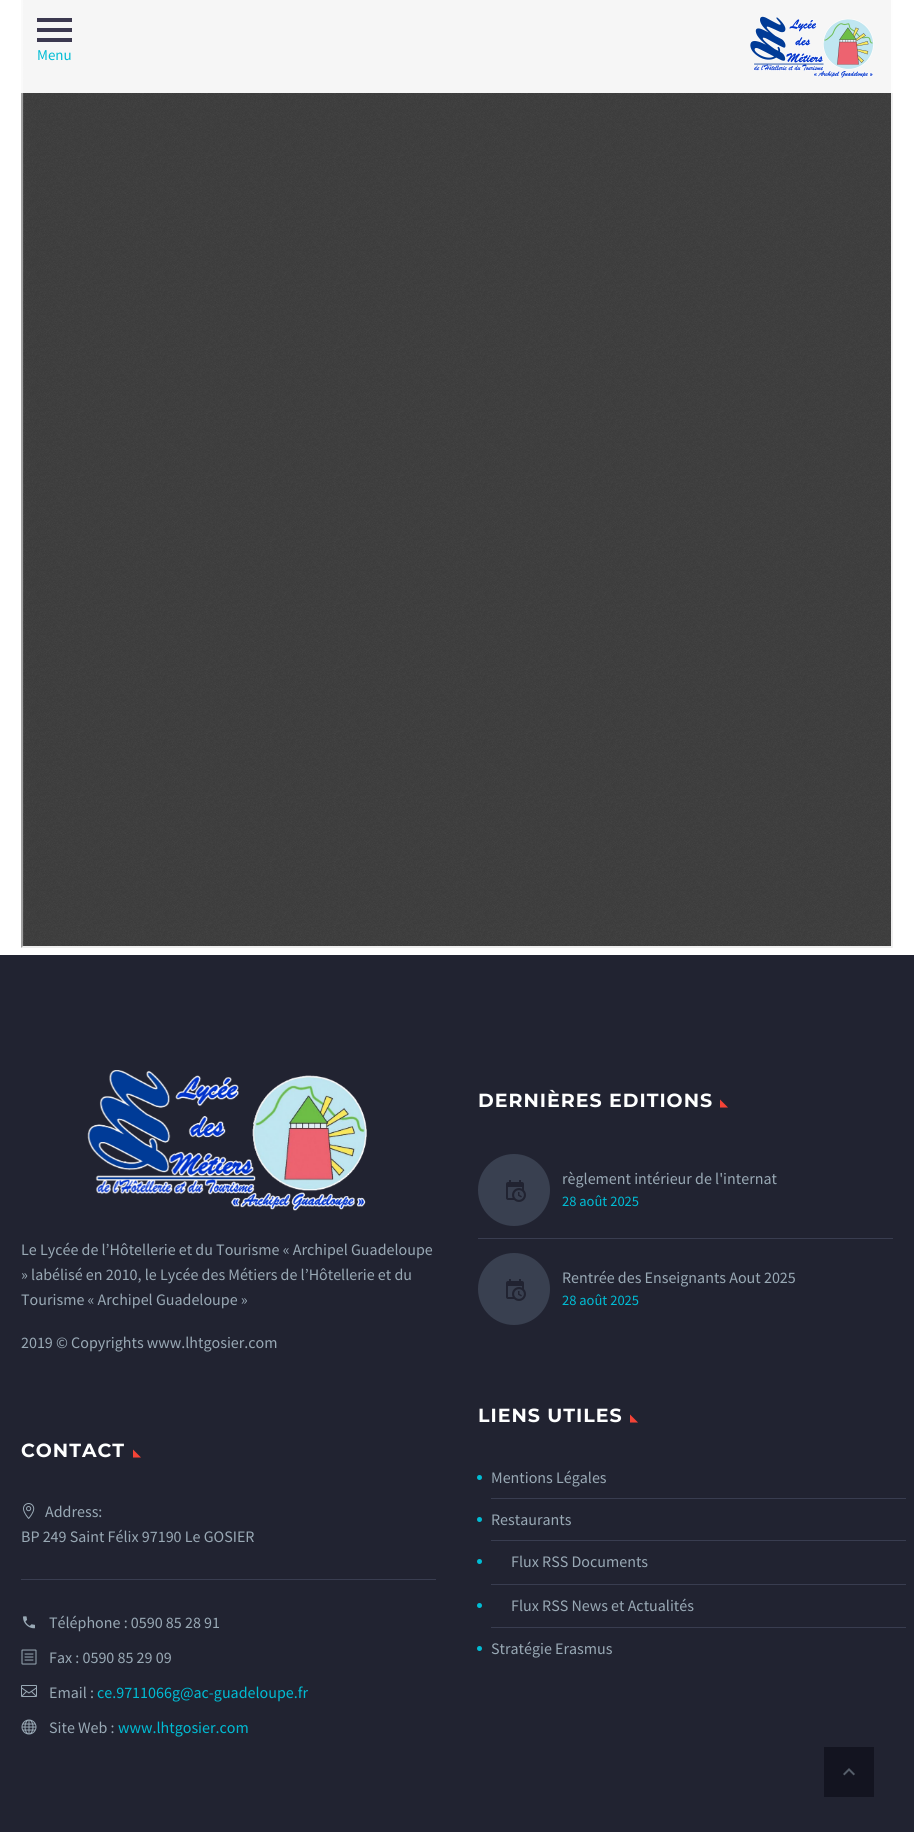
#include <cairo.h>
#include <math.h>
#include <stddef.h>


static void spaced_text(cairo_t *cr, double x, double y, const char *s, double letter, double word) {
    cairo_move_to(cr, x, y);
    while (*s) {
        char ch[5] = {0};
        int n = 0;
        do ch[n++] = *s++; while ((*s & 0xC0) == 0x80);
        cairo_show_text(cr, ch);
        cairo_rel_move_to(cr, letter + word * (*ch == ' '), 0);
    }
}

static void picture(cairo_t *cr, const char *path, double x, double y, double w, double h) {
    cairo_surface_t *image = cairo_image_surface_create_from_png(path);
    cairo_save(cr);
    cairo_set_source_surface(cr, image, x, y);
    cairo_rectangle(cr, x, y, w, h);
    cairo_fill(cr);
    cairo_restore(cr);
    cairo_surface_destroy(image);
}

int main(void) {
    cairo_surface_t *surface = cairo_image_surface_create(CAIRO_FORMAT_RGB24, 914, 1832);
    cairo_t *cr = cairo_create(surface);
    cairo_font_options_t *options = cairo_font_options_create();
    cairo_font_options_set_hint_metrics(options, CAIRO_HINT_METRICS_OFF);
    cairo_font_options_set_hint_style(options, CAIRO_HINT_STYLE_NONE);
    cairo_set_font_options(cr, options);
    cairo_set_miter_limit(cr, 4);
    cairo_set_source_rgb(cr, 1, 1, 1);
    cairo_paint(cr);
    cairo_set_source_rgb(cr, 0.933, 0.933, 0.933);
    cairo_new_path(cr);
    cairo_move_to(cr, 893, -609);
    cairo_line_to(cr, 893, 948);
    cairo_line_to(cr, 891, 946);
    cairo_line_to(cr, 891, -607);
    cairo_close_path(cr);
    cairo_fill(cr);
    cairo_new_path(cr);
    cairo_move_to(cr, 893, 948);
    cairo_line_to(cr, 21, 948);
    cairo_line_to(cr, 23, 946);
    cairo_line_to(cr, 891, 946);
    cairo_close_path(cr);
    cairo_fill(cr);
    cairo_set_source_rgb(cr, 0.624, 0.624, 0.624);
    cairo_new_path(cr);
    cairo_move_to(cr, 21, 948);
    cairo_line_to(cr, 21, -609);
    cairo_line_to(cr, 23, -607);
    cairo_line_to(cr, 23, 946);
    cairo_close_path(cr);
    cairo_fill(cr);
    picture(cr, "img1.png", 23, 0, 868, 946);
    cairo_set_source_rgba(cr, 1, 1, 1, 0.95);
    cairo_rectangle(cr, 21, 0, 872, 93);
    cairo_fill(cr);
    cairo_set_source_rgb(cr, 0.235, 0.224, 0.314);
    cairo_rectangle(cr, 37, 18, 35, 4);
    cairo_fill(cr);
    cairo_rectangle(cr, 37, 28, 35, 4);
    cairo_fill(cr);
    cairo_rectangle(cr, 37, 38, 35, 4);
    cairo_fill(cr);
    cairo_select_font_face(cr, "Source Sans Pro", CAIRO_FONT_SLANT_NORMAL, CAIRO_FONT_WEIGHT_NORMAL);
    cairo_set_font_size(cr, 15);
    cairo_set_source_rgb(cr, 0, 0.737, 0.831);
    cairo_move_to(cr, 37, 60);
    cairo_show_text(cr, "Menu");
    picture(cr, "img2.png", 750, 16, 124, 62);
    cairo_set_source_rgb(cr, 0.129, 0.137, 0.192);
    cairo_rectangle(cr, 0, 955, 914, 877);
    cairo_fill(cr);
    picture(cr, "img3.png", 87, 1070, 280, 141);
    cairo_set_font_size(cr, 16);
    cairo_set_source_rgb(cr, 0.6, 0.663, 0.71);
    cairo_move_to(cr, 21, 1255);
    cairo_show_text(cr, "Le Lycée de l’Hôtellerie et du Tourisme « Archipel Guadeloupe");
    cairo_move_to(cr, 21, 1280);
    cairo_show_text(cr, "» labélisé en 2010, le Lycée des Métiers de l’Hôtellerie et du");
    cairo_move_to(cr, 21, 1305);
    cairo_show_text(cr, "Tourisme « Archipel Guadeloupe »");
    cairo_move_to(cr, 21, 1348);
    cairo_show_text(cr, "2019 © Copyrights www.lhtgosier.com");
    cairo_select_font_face(cr, "Montserrat", CAIRO_FONT_SLANT_NORMAL, CAIRO_FONT_WEIGHT_BOLD);
    cairo_set_font_size(cr, 19);
    cairo_set_source_rgb(cr, 0.996, 1, 1);
    spaced_text(cr, 478, 1107, "DERNIÈRES EDITIONS", 1, 0);
    cairo_set_source_rgb(cr, 0.957, 0.263, 0.212);
    cairo_new_path(cr);
    cairo_move_to(cr, 720, 1099.5);
    cairo_line_to(cr, 720, 1107.5);
    cairo_line_to(cr, 728, 1107.5);
    cairo_close_path(cr);
    cairo_fill(cr);
    cairo_set_source_rgb(cr, 0.224, 0.239, 0.314);
    cairo_rectangle(cr, 478, 1238, 415, 1);
    cairo_fill(cr);
    cairo_set_source_rgb(cr, 0.224, 0.251, 0.314);
    cairo_arc(cr, 514, 1190, 36, 0, 2 * M_PI);
    cairo_fill(cr);
    picture(cr, "img4.png", 506, 1180, 20, 22);
    cairo_select_font_face(cr, "Source Sans Pro", CAIRO_FONT_SLANT_NORMAL, CAIRO_FONT_WEIGHT_NORMAL);
    cairo_set_font_size(cr, 16);
    cairo_set_source_rgb(cr, 0.6, 0.663, 0.71);
    cairo_move_to(cr, 562, 1184);
    cairo_show_text(cr, "règlement intérieur de l'internat");
    cairo_set_font_size(cr, 14.5);
    cairo_set_source_rgb(cr, 0, 0.737, 0.831);
    cairo_move_to(cr, 562, 1206);
    cairo_show_text(cr, "28 août 2025");
    cairo_set_source_rgb(cr, 0.224, 0.251, 0.314);
    cairo_new_path(cr);
    cairo_arc(cr, 514, 1289, 36, 0, 2 * M_PI);
    cairo_fill(cr);
    picture(cr, "img4.png", 506, 1279, 20, 22);
    cairo_set_font_size(cr, 16);
    cairo_set_source_rgb(cr, 0.6, 0.663, 0.71);
    cairo_move_to(cr, 562, 1283);
    cairo_show_text(cr, "Rentrée des Enseignants Aout 2025");
    cairo_set_font_size(cr, 14.5);
    cairo_set_source_rgb(cr, 0, 0.737, 0.831);
    cairo_move_to(cr, 562, 1305);
    cairo_show_text(cr, "28 août 2025");
    cairo_select_font_face(cr, "Montserrat", CAIRO_FONT_SLANT_NORMAL, CAIRO_FONT_WEIGHT_BOLD);
    cairo_set_font_size(cr, 19);
    cairo_set_source_rgb(cr, 0.996, 1, 1);
    spaced_text(cr, 21, 1457, "CONTACT", 1, 0);
    cairo_set_source_rgb(cr, 0.957, 0.263, 0.212);
    cairo_new_path(cr);
    cairo_move_to(cr, 133, 1449.5);
    cairo_line_to(cr, 133, 1457.5);
    cairo_line_to(cr, 141, 1457.5);
    cairo_close_path(cr);
    cairo_fill(cr);
    cairo_set_source_rgb(cr, 0.224, 0.239, 0.314);
    cairo_rectangle(cr, 21, 1579, 415, 1);
    cairo_fill(cr);
    picture(cr, "img5.png", 23, 1503, 12, 16);
    cairo_select_font_face(cr, "Source Sans Pro", CAIRO_FONT_SLANT_NORMAL, CAIRO_FONT_WEIGHT_NORMAL);
    cairo_set_font_size(cr, 16);
    cairo_set_source_rgb(cr, 0.6, 0.663, 0.71);
    cairo_move_to(cr, 45, 1517);
    cairo_show_text(cr, "Address:");
    cairo_move_to(cr, 21, 1542);
    cairo_show_text(cr, "BP 249 Saint Félix 97190 Le GOSIER");
    picture(cr, "img6.png", 23, 1616, 12, 13);
    cairo_move_to(cr, 49, 1628);
    cairo_show_text(cr, "Téléphone : 0590 85 28 91");
    picture(cr, "img7.png", 21, 1649, 16, 16);
    cairo_move_to(cr, 49, 1663);
    cairo_show_text(cr, "Fax : 0590 85 29 09");
    picture(cr, "img8.png", 21, 1685, 16, 12);
    cairo_move_to(cr, 49, 1698);
    cairo_show_text(cr, "Email :");
    cairo_set_source_rgb(cr, 0, 0.737, 0.831);
    cairo_move_to(cr, 97, 1698);
    cairo_show_text(cr, "ce.9711066g@ac-guadeloupe.fr");
    picture(cr, "img9.png", 21, 1719, 16, 16);
    cairo_set_source_rgb(cr, 0.6, 0.663, 0.71);
    cairo_move_to(cr, 49, 1733);
    cairo_show_text(cr, "Site Web :");
    cairo_set_source_rgb(cr, 0, 0.737, 0.831);
    cairo_move_to(cr, 118, 1733);
    cairo_show_text(cr, "www.lhtgosier.com");
    cairo_select_font_face(cr, "Montserrat", CAIRO_FONT_SLANT_NORMAL, CAIRO_FONT_WEIGHT_BOLD);
    cairo_set_font_size(cr, 19);
    cairo_set_source_rgb(cr, 0.996, 1, 1);
    spaced_text(cr, 478, 1422, "LIENS UTILES", 1, 0);
    cairo_set_source_rgb(cr, 0.957, 0.263, 0.212);
    cairo_new_path(cr);
    cairo_move_to(cr, 630, 1414.5);
    cairo_line_to(cr, 630, 1422.5);
    cairo_line_to(cr, 638, 1422.5);
    cairo_close_path(cr);
    cairo_fill(cr);
    cairo_set_source_rgb(cr, 0.224, 0.239, 0.314);
    cairo_rectangle(cr, 491, 1498, 415, 1);
    cairo_fill(cr);
    cairo_set_source_rgb(cr, 0, 0.737, 0.831);
    cairo_arc(cr, 479.5, 1477.5, 2.5, 0, 2 * M_PI);
    cairo_fill(cr);
    cairo_select_font_face(cr, "Source Sans Pro", CAIRO_FONT_SLANT_NORMAL, CAIRO_FONT_WEIGHT_NORMAL);
    cairo_set_font_size(cr, 16);
    cairo_set_source_rgb(cr, 0.6, 0.663, 0.71);
    cairo_move_to(cr, 491, 1483);
    cairo_show_text(cr, "Mentions Légales");
    cairo_set_source_rgb(cr, 0.224, 0.239, 0.314);
    cairo_rectangle(cr, 491, 1540, 415, 1);
    cairo_fill(cr);
    cairo_set_source_rgb(cr, 0, 0.737, 0.831);
    cairo_arc(cr, 479.5, 1519.5, 2.5, 0, 2 * M_PI);
    cairo_fill(cr);
    cairo_set_source_rgb(cr, 0.6, 0.663, 0.71);
    cairo_move_to(cr, 491, 1525);
    cairo_show_text(cr, "Restaurants");
    cairo_set_source_rgb(cr, 0.224, 0.239, 0.314);
    cairo_rectangle(cr, 491, 1584, 415, 1);
    cairo_fill(cr);
    cairo_set_source_rgb(cr, 0, 0.737, 0.831);
    cairo_arc(cr, 479.5, 1561.5, 2.5, 0, 2 * M_PI);
    cairo_fill(cr);
    cairo_set_source_rgb(cr, 0.6, 0.663, 0.71);
    cairo_move_to(cr, 511, 1567);
    cairo_show_text(cr, "Flux RSS Documents");
    cairo_set_source_rgb(cr, 0.224, 0.239, 0.314);
    cairo_rectangle(cr, 491, 1627, 415, 1);
    cairo_fill(cr);
    cairo_set_source_rgb(cr, 0, 0.737, 0.831);
    cairo_arc(cr, 479.5, 1605.5, 2.5, 0, 2 * M_PI);
    cairo_fill(cr);
    cairo_set_source_rgb(cr, 0.6, 0.663, 0.71);
    cairo_move_to(cr, 511, 1611);
    cairo_show_text(cr, "Flux RSS News et Actualités");
    cairo_set_source_rgb(cr, 0, 0.737, 0.831);
    cairo_new_path(cr);
    cairo_arc(cr, 479.5, 1648.5, 2.5, 0, 2 * M_PI);
    cairo_fill(cr);
    cairo_set_source_rgb(cr, 0.6, 0.663, 0.71);
    cairo_move_to(cr, 491, 1654);
    cairo_show_text(cr, "Stratégie Erasmus");
    cairo_set_source_rgb(cr, 0.078, 0.082, 0.125);
    cairo_rectangle(cr, 824, 1747, 50, 50);
    cairo_fill(cr);
    picture(cr, "img10.png", 843, 1768, 12, 8);
    cairo_surface_write_to_png(surface, "page.png");
    cairo_font_options_destroy(options);
    cairo_destroy(cr);
    cairo_surface_destroy(surface);
    return 0;
}
